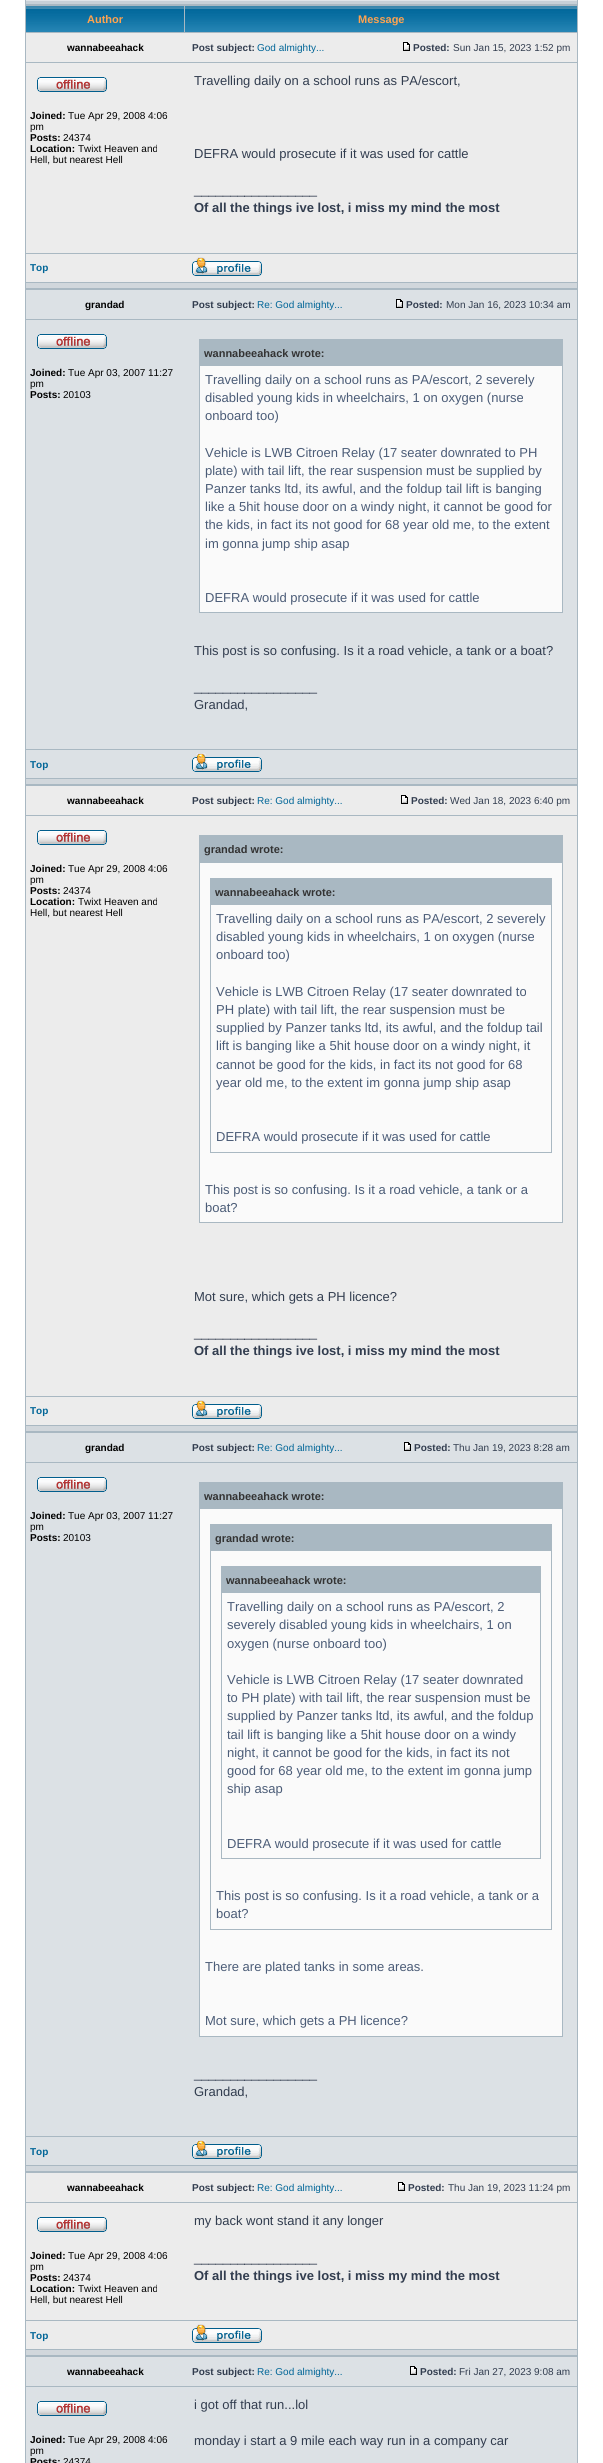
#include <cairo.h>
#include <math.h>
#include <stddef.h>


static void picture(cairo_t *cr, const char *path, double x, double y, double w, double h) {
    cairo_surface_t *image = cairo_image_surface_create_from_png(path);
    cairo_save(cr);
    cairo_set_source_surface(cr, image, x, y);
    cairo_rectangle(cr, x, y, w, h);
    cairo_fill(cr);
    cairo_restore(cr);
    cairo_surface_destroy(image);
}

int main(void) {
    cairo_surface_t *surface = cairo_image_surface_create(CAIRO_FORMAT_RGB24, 603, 2463);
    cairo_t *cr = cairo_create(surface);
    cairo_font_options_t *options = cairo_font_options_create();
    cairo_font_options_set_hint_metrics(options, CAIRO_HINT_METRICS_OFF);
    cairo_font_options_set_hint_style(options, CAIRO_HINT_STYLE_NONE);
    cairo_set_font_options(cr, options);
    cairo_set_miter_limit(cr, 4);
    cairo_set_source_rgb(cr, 1, 1, 1);
    cairo_paint(cr);
    cairo_set_source_rgb(cr, 0.663, 0.722, 0.761);
    cairo_rectangle(cr, 25, 0, 553, 2463);
    cairo_fill(cr);
    cairo_set_source_rgb(cr, 0.78, 0.816, 0.843);
    cairo_rectangle(cr, 26, 1, 551, 3);
    cairo_fill(cr);
    cairo_set_source_rgb(cr, 0.878, 0.898, 0.914);
    cairo_rectangle(cr, 26, 0, 551, 1);
    cairo_fill(cr);
    picture(cr, "img1.png", 26, 6, 158, 26);
    cairo_select_font_face(cr, "Liberation Sans", CAIRO_FONT_SLANT_NORMAL, CAIRO_FONT_WEIGHT_BOLD);
    cairo_set_font_size(cr, 11);
    cairo_set_source_rgb(cr, 1, 0.639, 0.31);
    cairo_move_to(cr, 87, 23);
    cairo_show_text(cr, "Author");
    picture(cr, "img2.png", 185, 6, 392, 26);
    cairo_move_to(cr, 358, 23);
    cairo_show_text(cr, "Message");
    cairo_set_source_rgb(cr, 0.925, 0.925, 0.925);
    cairo_rectangle(cr, 26, 33, 551, 29);
    cairo_fill(cr);
    cairo_set_font_size(cr, 10);
    cairo_set_source_rgb(cr, 0, 0, 0);
    cairo_move_to(cr, 67, 51);
    cairo_show_text(cr, "wannabeeahack");
    cairo_set_source_rgb(cr, 0.196, 0.239, 0.31);
    cairo_move_to(cr, 192, 51);
    cairo_show_text(cr, "Post subject:");
    cairo_select_font_face(cr, "Liberation Sans", CAIRO_FONT_SLANT_NORMAL, CAIRO_FONT_WEIGHT_NORMAL);
    cairo_set_source_rgb(cr, 0, 0.396, 0.592);
    cairo_move_to(cr, 257, 51);
    cairo_show_text(cr, "God almighty...");
    picture(cr, "img3.png", 403, 42, 7, 9);
    cairo_select_font_face(cr, "Liberation Sans", CAIRO_FONT_SLANT_NORMAL, CAIRO_FONT_WEIGHT_BOLD);
    cairo_set_source_rgb(cr, 0.196, 0.239, 0.31);
    cairo_move_to(cr, 413, 51);
    cairo_show_text(cr, "Posted:");
    cairo_select_font_face(cr, "Liberation Sans", CAIRO_FONT_SLANT_NORMAL, CAIRO_FONT_WEIGHT_NORMAL);
    cairo_move_to(cr, 453, 51);
    cairo_show_text(cr, "Sun Jan 15, 2023 1:52 pm");
    cairo_set_source_rgb(cr, 0.925, 0.925, 0.925);
    cairo_rectangle(cr, 26, 63, 551, 190);
    cairo_fill(cr);
    picture(cr, "img4.png", 37, 77, 70, 15);
    cairo_select_font_face(cr, "Liberation Sans", CAIRO_FONT_SLANT_NORMAL, CAIRO_FONT_WEIGHT_BOLD);
    cairo_set_source_rgb(cr, 0, 0, 0);
    cairo_move_to(cr, 30, 119);
    cairo_show_text(cr, "Joined:");
    cairo_select_font_face(cr, "Liberation Sans", CAIRO_FONT_SLANT_NORMAL, CAIRO_FONT_WEIGHT_NORMAL);
    cairo_move_to(cr, 68, 119);
    cairo_show_text(cr, "Tue Apr 29, 2008 4:06");
    cairo_move_to(cr, 30, 130);
    cairo_show_text(cr, "pm");
    cairo_select_font_face(cr, "Liberation Sans", CAIRO_FONT_SLANT_NORMAL, CAIRO_FONT_WEIGHT_BOLD);
    cairo_move_to(cr, 30, 141);
    cairo_show_text(cr, "Posts:");
    cairo_select_font_face(cr, "Liberation Sans", CAIRO_FONT_SLANT_NORMAL, CAIRO_FONT_WEIGHT_NORMAL);
    cairo_move_to(cr, 63, 141);
    cairo_show_text(cr, "24374");
    cairo_select_font_face(cr, "Liberation Sans", CAIRO_FONT_SLANT_NORMAL, CAIRO_FONT_WEIGHT_BOLD);
    cairo_move_to(cr, 30, 152);
    cairo_show_text(cr, "Location:");
    cairo_select_font_face(cr, "Liberation Sans", CAIRO_FONT_SLANT_NORMAL, CAIRO_FONT_WEIGHT_NORMAL);
    cairo_move_to(cr, 78, 152);
    cairo_show_text(cr, "Twixt Heaven and");
    cairo_move_to(cr, 30, 163);
    cairo_show_text(cr, "Hell, but nearest Hell");
    cairo_set_font_size(cr, 13);
    cairo_set_source_rgb(cr, 0.196, 0.239, 0.31);
    cairo_move_to(cr, 194, 85);
    cairo_show_text(cr, "Travelling daily on a school runs as PA/escort,");
    cairo_move_to(cr, 194, 158);
    cairo_show_text(cr, "DEFRA would prosecute if it was used for cattle");
    cairo_move_to(cr, 194, 194);
    cairo_show_text(cr, "_________________");
    cairo_select_font_face(cr, "Liberation Sans", CAIRO_FONT_SLANT_NORMAL, CAIRO_FONT_WEIGHT_BOLD);
    cairo_move_to(cr, 194, 212);
    cairo_show_text(cr, "Of all the things ive lost, i miss my mind the most");
    cairo_set_source_rgb(cr, 0.925, 0.925, 0.925);
    cairo_rectangle(cr, 26, 254, 551, 28);
    cairo_fill(cr);
    cairo_set_font_size(cr, 10);
    cairo_set_source_rgb(cr, 0, 0.396, 0.592);
    cairo_move_to(cr, 30, 271);
    cairo_show_text(cr, "Top");
    picture(cr, "img5.png", 192, 257, 70, 19);
    cairo_set_source_rgb(cr, 0.82, 0.843, 0.863);
    cairo_rectangle(cr, 26, 283, 551, 5);
    cairo_fill(cr);
    cairo_set_source_rgb(cr, 0.863, 0.882, 0.898);
    cairo_rectangle(cr, 26, 290, 551, 29);
    cairo_fill(cr);
    cairo_set_source_rgb(cr, 0, 0, 0);
    cairo_move_to(cr, 85, 308);
    cairo_show_text(cr, "grandad");
    cairo_set_source_rgb(cr, 0.196, 0.239, 0.31);
    cairo_move_to(cr, 192, 308);
    cairo_show_text(cr, "Post subject:");
    cairo_select_font_face(cr, "Liberation Sans", CAIRO_FONT_SLANT_NORMAL, CAIRO_FONT_WEIGHT_NORMAL);
    cairo_set_source_rgb(cr, 0, 0.396, 0.592);
    cairo_move_to(cr, 257, 308);
    cairo_show_text(cr, "Re: God almighty...");
    picture(cr, "img6.png", 396, 299, 7, 9);
    cairo_select_font_face(cr, "Liberation Sans", CAIRO_FONT_SLANT_NORMAL, CAIRO_FONT_WEIGHT_BOLD);
    cairo_set_source_rgb(cr, 0.196, 0.239, 0.31);
    cairo_move_to(cr, 406, 308);
    cairo_show_text(cr, "Posted:");
    cairo_select_font_face(cr, "Liberation Sans", CAIRO_FONT_SLANT_NORMAL, CAIRO_FONT_WEIGHT_NORMAL);
    cairo_move_to(cr, 446, 308);
    cairo_show_text(cr, "Mon Jan 16, 2023 10:34 am");
    cairo_set_source_rgb(cr, 0.863, 0.882, 0.898);
    cairo_rectangle(cr, 26, 320, 551, 429);
    cairo_fill(cr);
    picture(cr, "img7.png", 37, 334, 70, 15);
    cairo_select_font_face(cr, "Liberation Sans", CAIRO_FONT_SLANT_NORMAL, CAIRO_FONT_WEIGHT_BOLD);
    cairo_set_source_rgb(cr, 0, 0, 0);
    cairo_move_to(cr, 30, 376);
    cairo_show_text(cr, "Joined:");
    cairo_select_font_face(cr, "Liberation Sans", CAIRO_FONT_SLANT_NORMAL, CAIRO_FONT_WEIGHT_NORMAL);
    cairo_move_to(cr, 68, 376);
    cairo_show_text(cr, "Tue Apr 03, 2007 11:27");
    cairo_move_to(cr, 30, 387);
    cairo_show_text(cr, "pm");
    cairo_select_font_face(cr, "Liberation Sans", CAIRO_FONT_SLANT_NORMAL, CAIRO_FONT_WEIGHT_BOLD);
    cairo_move_to(cr, 30, 398);
    cairo_show_text(cr, "Posts:");
    cairo_select_font_face(cr, "Liberation Sans", CAIRO_FONT_SLANT_NORMAL, CAIRO_FONT_WEIGHT_NORMAL);
    cairo_move_to(cr, 63, 398);
    cairo_show_text(cr, "20103");
    cairo_set_source_rgb(cr, 0.663, 0.722, 0.761);
    cairo_rectangle(cr, 200, 340, 362, 26);
    cairo_fill(cr);
    cairo_rectangle(cr, 199, 339, 364, 1);
    cairo_fill(cr);
    cairo_rectangle(cr, 562, 339, 1, 274);
    cairo_fill(cr);
    cairo_rectangle(cr, 199, 339, 1, 27);
    cairo_fill(cr);
    cairo_select_font_face(cr, "Liberation Sans", CAIRO_FONT_SLANT_NORMAL, CAIRO_FONT_WEIGHT_BOLD);
    cairo_set_font_size(cr, 11);
    cairo_set_source_rgb(cr, 0.2, 0.2, 0.2);
    cairo_move_to(cr, 204, 357);
    cairo_show_text(cr, "wannabeeahack wrote:");
    cairo_set_source_rgb(cr, 0.98, 0.98, 0.98);
    cairo_rectangle(cr, 200, 366, 362, 246);
    cairo_fill(cr);
    cairo_set_source_rgb(cr, 0.663, 0.722, 0.761);
    cairo_rectangle(cr, 199, 612, 364, 1);
    cairo_fill(cr);
    cairo_rectangle(cr, 199, 366, 1, 247);
    cairo_fill(cr);
    cairo_select_font_face(cr, "Liberation Sans", CAIRO_FONT_SLANT_NORMAL, CAIRO_FONT_WEIGHT_NORMAL);
    cairo_set_font_size(cr, 13);
    cairo_set_source_rgb(cr, 0.294, 0.361, 0.467);
    cairo_move_to(cr, 205, 384);
    cairo_show_text(cr, "Travelling daily on a school runs as PA/escort, 2 severely");
    cairo_move_to(cr, 205, 402);
    cairo_show_text(cr, "disabled young kids in wheelchairs, 1 on oxygen (nurse");
    cairo_move_to(cr, 205, 420);
    cairo_show_text(cr, "onboard too)");
    cairo_move_to(cr, 205, 457);
    cairo_show_text(cr, "Vehicle is LWB Citroen Relay (17 seater downrated to PH");
    cairo_move_to(cr, 205, 475);
    cairo_show_text(cr, "plate) with tail lift, the rear suspension must be supplied by");
    cairo_move_to(cr, 205, 493);
    cairo_show_text(cr, "Panzer tanks ltd, its awful, and the foldup tail lift is banging");
    cairo_move_to(cr, 205, 511);
    cairo_show_text(cr, "like a 5hit house door on a windy night, it cannot be good for");
    cairo_move_to(cr, 205, 529);
    cairo_show_text(cr, "the kids, in fact its not good for 68 year old me, to the extent");
    cairo_move_to(cr, 205, 548);
    cairo_show_text(cr, "im gonna jump ship asap");
    cairo_move_to(cr, 205, 602);
    cairo_show_text(cr, "DEFRA would prosecute if it was used for cattle");
    cairo_set_source_rgb(cr, 0.196, 0.239, 0.31);
    cairo_move_to(cr, 194, 655);
    cairo_show_text(cr, "This post is so confusing. Is it a road vehicle, a tank or a boat?");
    cairo_move_to(cr, 194, 691);
    cairo_show_text(cr, "_________________");
    cairo_move_to(cr, 194, 709);
    cairo_show_text(cr, "Grandad,");
    cairo_set_source_rgb(cr, 0.863, 0.882, 0.898);
    cairo_rectangle(cr, 26, 750, 551, 28);
    cairo_fill(cr);
    cairo_select_font_face(cr, "Liberation Sans", CAIRO_FONT_SLANT_NORMAL, CAIRO_FONT_WEIGHT_BOLD);
    cairo_set_font_size(cr, 10);
    cairo_set_source_rgb(cr, 0, 0.396, 0.592);
    cairo_move_to(cr, 30, 768);
    cairo_show_text(cr, "Top");
    picture(cr, "img8.png", 192, 753, 70, 19);
    cairo_set_source_rgb(cr, 0.82, 0.843, 0.863);
    cairo_rectangle(cr, 26, 779, 551, 5);
    cairo_fill(cr);
    cairo_set_source_rgb(cr, 0.925, 0.925, 0.925);
    cairo_rectangle(cr, 26, 786, 551, 29);
    cairo_fill(cr);
    cairo_set_source_rgb(cr, 0, 0, 0);
    cairo_move_to(cr, 67, 804);
    cairo_show_text(cr, "wannabeeahack");
    cairo_set_source_rgb(cr, 0.196, 0.239, 0.31);
    cairo_move_to(cr, 192, 804);
    cairo_show_text(cr, "Post subject:");
    cairo_select_font_face(cr, "Liberation Sans", CAIRO_FONT_SLANT_NORMAL, CAIRO_FONT_WEIGHT_NORMAL);
    cairo_set_source_rgb(cr, 0, 0.396, 0.592);
    cairo_move_to(cr, 257, 804);
    cairo_show_text(cr, "Re: God almighty...");
    picture(cr, "img3.png", 401, 795, 7, 9);
    cairo_select_font_face(cr, "Liberation Sans", CAIRO_FONT_SLANT_NORMAL, CAIRO_FONT_WEIGHT_BOLD);
    cairo_set_source_rgb(cr, 0.196, 0.239, 0.31);
    cairo_move_to(cr, 411, 804);
    cairo_show_text(cr, "Posted:");
    cairo_select_font_face(cr, "Liberation Sans", CAIRO_FONT_SLANT_NORMAL, CAIRO_FONT_WEIGHT_NORMAL);
    cairo_move_to(cr, 450, 804);
    cairo_show_text(cr, "Wed Jan 18, 2023 6:40 pm");
    cairo_set_source_rgb(cr, 0.925, 0.925, 0.925);
    cairo_rectangle(cr, 26, 816, 551, 580);
    cairo_fill(cr);
    picture(cr, "img4.png", 37, 830, 70, 15);
    cairo_select_font_face(cr, "Liberation Sans", CAIRO_FONT_SLANT_NORMAL, CAIRO_FONT_WEIGHT_BOLD);
    cairo_set_source_rgb(cr, 0, 0, 0);
    cairo_move_to(cr, 30, 872);
    cairo_show_text(cr, "Joined:");
    cairo_select_font_face(cr, "Liberation Sans", CAIRO_FONT_SLANT_NORMAL, CAIRO_FONT_WEIGHT_NORMAL);
    cairo_move_to(cr, 68, 872);
    cairo_show_text(cr, "Tue Apr 29, 2008 4:06");
    cairo_move_to(cr, 30, 883);
    cairo_show_text(cr, "pm");
    cairo_select_font_face(cr, "Liberation Sans", CAIRO_FONT_SLANT_NORMAL, CAIRO_FONT_WEIGHT_BOLD);
    cairo_move_to(cr, 30, 894);
    cairo_show_text(cr, "Posts:");
    cairo_select_font_face(cr, "Liberation Sans", CAIRO_FONT_SLANT_NORMAL, CAIRO_FONT_WEIGHT_NORMAL);
    cairo_move_to(cr, 63, 894);
    cairo_show_text(cr, "24374");
    cairo_select_font_face(cr, "Liberation Sans", CAIRO_FONT_SLANT_NORMAL, CAIRO_FONT_WEIGHT_BOLD);
    cairo_move_to(cr, 30, 905);
    cairo_show_text(cr, "Location:");
    cairo_select_font_face(cr, "Liberation Sans", CAIRO_FONT_SLANT_NORMAL, CAIRO_FONT_WEIGHT_NORMAL);
    cairo_move_to(cr, 78, 905);
    cairo_show_text(cr, "Twixt Heaven and");
    cairo_move_to(cr, 30, 916);
    cairo_show_text(cr, "Hell, but nearest Hell");
    cairo_set_source_rgb(cr, 0.663, 0.722, 0.761);
    cairo_rectangle(cr, 200, 836, 362, 27);
    cairo_fill(cr);
    cairo_rectangle(cr, 199, 835, 364, 1);
    cairo_fill(cr);
    cairo_rectangle(cr, 562, 835, 1, 388);
    cairo_fill(cr);
    cairo_rectangle(cr, 199, 835, 1, 28);
    cairo_fill(cr);
    cairo_select_font_face(cr, "Liberation Sans", CAIRO_FONT_SLANT_NORMAL, CAIRO_FONT_WEIGHT_BOLD);
    cairo_set_font_size(cr, 11);
    cairo_set_source_rgb(cr, 0.2, 0.2, 0.2);
    cairo_move_to(cr, 204, 853);
    cairo_show_text(cr, "grandad wrote:");
    cairo_set_source_rgb(cr, 0.98, 0.98, 0.98);
    cairo_rectangle(cr, 200, 863, 362, 359);
    cairo_fill(cr);
    cairo_set_source_rgb(cr, 0.663, 0.722, 0.761);
    cairo_rectangle(cr, 199, 1222, 364, 1);
    cairo_fill(cr);
    cairo_rectangle(cr, 199, 863, 1, 360);
    cairo_fill(cr);
    cairo_rectangle(cr, 211, 879, 340, 26);
    cairo_fill(cr);
    cairo_rectangle(cr, 210, 878, 342, 1);
    cairo_fill(cr);
    cairo_rectangle(cr, 551, 878, 1, 275);
    cairo_fill(cr);
    cairo_rectangle(cr, 210, 878, 1, 27);
    cairo_fill(cr);
    cairo_set_source_rgb(cr, 0.2, 0.2, 0.2);
    cairo_move_to(cr, 215, 896);
    cairo_show_text(cr, "wannabeeahack wrote:");
    cairo_set_source_rgb(cr, 0.663, 0.722, 0.761);
    cairo_rectangle(cr, 210, 1152, 342, 1);
    cairo_fill(cr);
    cairo_rectangle(cr, 210, 905, 1, 248);
    cairo_fill(cr);
    cairo_select_font_face(cr, "Liberation Sans", CAIRO_FONT_SLANT_NORMAL, CAIRO_FONT_WEIGHT_NORMAL);
    cairo_set_font_size(cr, 13);
    cairo_set_source_rgb(cr, 0.294, 0.361, 0.467);
    cairo_move_to(cr, 216, 923);
    cairo_show_text(cr, "Travelling daily on a school runs as PA/escort, 2 severely");
    cairo_move_to(cr, 216, 941);
    cairo_show_text(cr, "disabled young kids in wheelchairs, 1 on oxygen (nurse");
    cairo_move_to(cr, 216, 959);
    cairo_show_text(cr, "onboard too)");
    cairo_move_to(cr, 216, 996);
    cairo_show_text(cr, "Vehicle is LWB Citroen Relay (17 seater downrated to");
    cairo_move_to(cr, 216, 1014);
    cairo_show_text(cr, "PH plate) with tail lift, the rear suspension must be");
    cairo_move_to(cr, 216, 1032);
    cairo_show_text(cr, "supplied by Panzer tanks ltd, its awful, and the foldup tail");
    cairo_move_to(cr, 216, 1050);
    cairo_show_text(cr, "lift is banging like a 5hit house door on a windy night, it");
    cairo_move_to(cr, 216, 1069);
    cairo_show_text(cr, "cannot be good for the kids, in fact its not good for 68");
    cairo_move_to(cr, 216, 1087);
    cairo_show_text(cr, "year old me, to the extent im gonna jump ship asap");
    cairo_move_to(cr, 216, 1141);
    cairo_show_text(cr, "DEFRA would prosecute if it was used for cattle");
    cairo_move_to(cr, 205, 1194);
    cairo_show_text(cr, "This post is so confusing. Is it a road vehicle, a tank or a");
    cairo_move_to(cr, 205, 1212);
    cairo_show_text(cr, "boat?");
    cairo_set_source_rgb(cr, 0.196, 0.239, 0.31);
    cairo_move_to(cr, 194, 1301);
    cairo_show_text(cr, "Mot sure, which gets a PH licence?");
    cairo_move_to(cr, 194, 1337);
    cairo_show_text(cr, "_________________");
    cairo_select_font_face(cr, "Liberation Sans", CAIRO_FONT_SLANT_NORMAL, CAIRO_FONT_WEIGHT_BOLD);
    cairo_move_to(cr, 194, 1355);
    cairo_show_text(cr, "Of all the things ive lost, i miss my mind the most");
    cairo_set_source_rgb(cr, 0.925, 0.925, 0.925);
    cairo_rectangle(cr, 26, 1397, 551, 28);
    cairo_fill(cr);
    cairo_set_font_size(cr, 10);
    cairo_set_source_rgb(cr, 0, 0.396, 0.592);
    cairo_move_to(cr, 30, 1414);
    cairo_show_text(cr, "Top");
    picture(cr, "img5.png", 192, 1400, 70, 19);
    cairo_set_source_rgb(cr, 0.82, 0.843, 0.863);
    cairo_rectangle(cr, 26, 1426, 551, 5);
    cairo_fill(cr);
    cairo_set_source_rgb(cr, 0.863, 0.882, 0.898);
    cairo_rectangle(cr, 26, 1433, 551, 29);
    cairo_fill(cr);
    cairo_set_source_rgb(cr, 0, 0, 0);
    cairo_move_to(cr, 85, 1451);
    cairo_show_text(cr, "grandad");
    cairo_set_source_rgb(cr, 0.196, 0.239, 0.31);
    cairo_move_to(cr, 192, 1451);
    cairo_show_text(cr, "Post subject:");
    cairo_select_font_face(cr, "Liberation Sans", CAIRO_FONT_SLANT_NORMAL, CAIRO_FONT_WEIGHT_NORMAL);
    cairo_set_source_rgb(cr, 0, 0.396, 0.592);
    cairo_move_to(cr, 257, 1451);
    cairo_show_text(cr, "Re: God almighty...");
    picture(cr, "img6.png", 404, 1442, 7, 9);
    cairo_select_font_face(cr, "Liberation Sans", CAIRO_FONT_SLANT_NORMAL, CAIRO_FONT_WEIGHT_BOLD);
    cairo_set_source_rgb(cr, 0.196, 0.239, 0.31);
    cairo_move_to(cr, 414, 1451);
    cairo_show_text(cr, "Posted:");
    cairo_select_font_face(cr, "Liberation Sans", CAIRO_FONT_SLANT_NORMAL, CAIRO_FONT_WEIGHT_NORMAL);
    cairo_move_to(cr, 453, 1451);
    cairo_show_text(cr, "Thu Jan 19, 2023 8:28 am");
    cairo_set_source_rgb(cr, 0.863, 0.882, 0.898);
    cairo_rectangle(cr, 26, 1463, 551, 673);
    cairo_fill(cr);
    picture(cr, "img7.png", 37, 1477, 70, 15);
    cairo_select_font_face(cr, "Liberation Sans", CAIRO_FONT_SLANT_NORMAL, CAIRO_FONT_WEIGHT_BOLD);
    cairo_set_source_rgb(cr, 0, 0, 0);
    cairo_move_to(cr, 30, 1519);
    cairo_show_text(cr, "Joined:");
    cairo_select_font_face(cr, "Liberation Sans", CAIRO_FONT_SLANT_NORMAL, CAIRO_FONT_WEIGHT_NORMAL);
    cairo_move_to(cr, 68, 1519);
    cairo_show_text(cr, "Tue Apr 03, 2007 11:27");
    cairo_move_to(cr, 30, 1530);
    cairo_show_text(cr, "pm");
    cairo_select_font_face(cr, "Liberation Sans", CAIRO_FONT_SLANT_NORMAL, CAIRO_FONT_WEIGHT_BOLD);
    cairo_move_to(cr, 30, 1541);
    cairo_show_text(cr, "Posts:");
    cairo_select_font_face(cr, "Liberation Sans", CAIRO_FONT_SLANT_NORMAL, CAIRO_FONT_WEIGHT_NORMAL);
    cairo_move_to(cr, 63, 1541);
    cairo_show_text(cr, "20103");
    cairo_set_source_rgb(cr, 0.663, 0.722, 0.761);
    cairo_rectangle(cr, 200, 1483, 362, 26);
    cairo_fill(cr);
    cairo_rectangle(cr, 199, 1482, 364, 1);
    cairo_fill(cr);
    cairo_rectangle(cr, 562, 1482, 1, 555);
    cairo_fill(cr);
    cairo_rectangle(cr, 199, 1482, 1, 27);
    cairo_fill(cr);
    cairo_select_font_face(cr, "Liberation Sans", CAIRO_FONT_SLANT_NORMAL, CAIRO_FONT_WEIGHT_BOLD);
    cairo_set_font_size(cr, 11);
    cairo_set_source_rgb(cr, 0.2, 0.2, 0.2);
    cairo_move_to(cr, 204, 1500);
    cairo_show_text(cr, "wannabeeahack wrote:");
    cairo_set_source_rgb(cr, 0.98, 0.98, 0.98);
    cairo_rectangle(cr, 200, 1509, 362, 527);
    cairo_fill(cr);
    cairo_set_source_rgb(cr, 0.663, 0.722, 0.761);
    cairo_rectangle(cr, 199, 2036, 364, 1);
    cairo_fill(cr);
    cairo_rectangle(cr, 199, 1509, 1, 528);
    cairo_fill(cr);
    cairo_rectangle(cr, 211, 1525, 340, 26);
    cairo_fill(cr);
    cairo_rectangle(cr, 210, 1524, 342, 1);
    cairo_fill(cr);
    cairo_rectangle(cr, 551, 1524, 1, 406);
    cairo_fill(cr);
    cairo_rectangle(cr, 210, 1524, 1, 27);
    cairo_fill(cr);
    cairo_set_source_rgb(cr, 0.2, 0.2, 0.2);
    cairo_move_to(cr, 215, 1542);
    cairo_show_text(cr, "grandad wrote:");
    cairo_set_source_rgb(cr, 0.663, 0.722, 0.761);
    cairo_rectangle(cr, 210, 1929, 342, 1);
    cairo_fill(cr);
    cairo_rectangle(cr, 210, 1551, 1, 379);
    cairo_fill(cr);
    cairo_rectangle(cr, 222, 1567, 318, 26);
    cairo_fill(cr);
    cairo_rectangle(cr, 221, 1566, 320, 1);
    cairo_fill(cr);
    cairo_rectangle(cr, 540, 1566, 1, 293);
    cairo_fill(cr);
    cairo_rectangle(cr, 221, 1566, 1, 27);
    cairo_fill(cr);
    cairo_set_source_rgb(cr, 0.2, 0.2, 0.2);
    cairo_move_to(cr, 226, 1584);
    cairo_show_text(cr, "wannabeeahack wrote:");
    cairo_set_source_rgb(cr, 0.663, 0.722, 0.761);
    cairo_rectangle(cr, 221, 1858, 320, 1);
    cairo_fill(cr);
    cairo_rectangle(cr, 221, 1593, 1, 266);
    cairo_fill(cr);
    cairo_select_font_face(cr, "Liberation Sans", CAIRO_FONT_SLANT_NORMAL, CAIRO_FONT_WEIGHT_NORMAL);
    cairo_set_font_size(cr, 13);
    cairo_set_source_rgb(cr, 0.294, 0.361, 0.467);
    cairo_move_to(cr, 227, 1611);
    cairo_show_text(cr, "Travelling daily on a school runs as PA/escort, 2");
    cairo_move_to(cr, 227, 1629);
    cairo_show_text(cr, "severely disabled young kids in wheelchairs, 1 on");
    cairo_move_to(cr, 227, 1648);
    cairo_show_text(cr, "oxygen (nurse onboard too)");
    cairo_move_to(cr, 227, 1684);
    cairo_show_text(cr, "Vehicle is LWB Citroen Relay (17 seater downrated");
    cairo_move_to(cr, 227, 1702);
    cairo_show_text(cr, "to PH plate) with tail lift, the rear suspension must be");
    cairo_move_to(cr, 227, 1720);
    cairo_show_text(cr, "supplied by Panzer tanks ltd, its awful, and the foldup");
    cairo_move_to(cr, 227, 1739);
    cairo_show_text(cr, "tail lift is banging like a 5hit house door on a windy");
    cairo_move_to(cr, 227, 1757);
    cairo_show_text(cr, "night, it cannot be good for the kids, in fact its not");
    cairo_move_to(cr, 227, 1775);
    cairo_show_text(cr, "good for 68 year old me, to the extent im gonna jump");
    cairo_move_to(cr, 227, 1793);
    cairo_show_text(cr, "ship asap");
    cairo_move_to(cr, 227, 1848);
    cairo_show_text(cr, "DEFRA would prosecute if it was used for cattle");
    cairo_move_to(cr, 216, 1900);
    cairo_show_text(cr, "This post is so confusing. Is it a road vehicle, a tank or a");
    cairo_move_to(cr, 216, 1918);
    cairo_show_text(cr, "boat?");
    cairo_move_to(cr, 205, 1971);
    cairo_show_text(cr, "There are plated tanks in some areas.");
    cairo_move_to(cr, 205, 2025);
    cairo_show_text(cr, "Mot sure, which gets a PH licence?");
    cairo_set_source_rgb(cr, 0.196, 0.239, 0.31);
    cairo_move_to(cr, 194, 2078);
    cairo_show_text(cr, "_________________");
    cairo_move_to(cr, 194, 2096);
    cairo_show_text(cr, "Grandad,");
    cairo_set_source_rgb(cr, 0.863, 0.882, 0.898);
    cairo_rectangle(cr, 26, 2137, 551, 28);
    cairo_fill(cr);
    cairo_select_font_face(cr, "Liberation Sans", CAIRO_FONT_SLANT_NORMAL, CAIRO_FONT_WEIGHT_BOLD);
    cairo_set_font_size(cr, 10);
    cairo_set_source_rgb(cr, 0, 0.396, 0.592);
    cairo_move_to(cr, 30, 2155);
    cairo_show_text(cr, "Top");
    picture(cr, "img8.png", 192, 2140, 70, 19);
    cairo_set_source_rgb(cr, 0.82, 0.843, 0.863);
    cairo_rectangle(cr, 26, 2166, 551, 5);
    cairo_fill(cr);
    cairo_set_source_rgb(cr, 0.925, 0.925, 0.925);
    cairo_rectangle(cr, 26, 2173, 551, 29);
    cairo_fill(cr);
    cairo_set_source_rgb(cr, 0, 0, 0);
    cairo_move_to(cr, 67, 2191);
    cairo_show_text(cr, "wannabeeahack");
    cairo_set_source_rgb(cr, 0.196, 0.239, 0.31);
    cairo_move_to(cr, 192, 2191);
    cairo_show_text(cr, "Post subject:");
    cairo_select_font_face(cr, "Liberation Sans", CAIRO_FONT_SLANT_NORMAL, CAIRO_FONT_WEIGHT_NORMAL);
    cairo_set_source_rgb(cr, 0, 0.396, 0.592);
    cairo_move_to(cr, 257, 2191);
    cairo_show_text(cr, "Re: God almighty...");
    picture(cr, "img3.png", 398, 2182, 7, 9);
    cairo_select_font_face(cr, "Liberation Sans", CAIRO_FONT_SLANT_NORMAL, CAIRO_FONT_WEIGHT_BOLD);
    cairo_set_source_rgb(cr, 0.196, 0.239, 0.31);
    cairo_move_to(cr, 408, 2191);
    cairo_show_text(cr, "Posted:");
    cairo_select_font_face(cr, "Liberation Sans", CAIRO_FONT_SLANT_NORMAL, CAIRO_FONT_WEIGHT_NORMAL);
    cairo_move_to(cr, 448, 2191);
    cairo_show_text(cr, "Thu Jan 19, 2023 11:24 pm");
    cairo_set_source_rgb(cr, 0.925, 0.925, 0.925);
    cairo_rectangle(cr, 26, 2203, 551, 117);
    cairo_fill(cr);
    picture(cr, "img4.png", 37, 2217, 70, 15);
    cairo_select_font_face(cr, "Liberation Sans", CAIRO_FONT_SLANT_NORMAL, CAIRO_FONT_WEIGHT_BOLD);
    cairo_set_source_rgb(cr, 0, 0, 0);
    cairo_move_to(cr, 30, 2259);
    cairo_show_text(cr, "Joined:");
    cairo_select_font_face(cr, "Liberation Sans", CAIRO_FONT_SLANT_NORMAL, CAIRO_FONT_WEIGHT_NORMAL);
    cairo_move_to(cr, 68, 2259);
    cairo_show_text(cr, "Tue Apr 29, 2008 4:06");
    cairo_move_to(cr, 30, 2270);
    cairo_show_text(cr, "pm");
    cairo_select_font_face(cr, "Liberation Sans", CAIRO_FONT_SLANT_NORMAL, CAIRO_FONT_WEIGHT_BOLD);
    cairo_move_to(cr, 30, 2281);
    cairo_show_text(cr, "Posts:");
    cairo_select_font_face(cr, "Liberation Sans", CAIRO_FONT_SLANT_NORMAL, CAIRO_FONT_WEIGHT_NORMAL);
    cairo_move_to(cr, 63, 2281);
    cairo_show_text(cr, "24374");
    cairo_select_font_face(cr, "Liberation Sans", CAIRO_FONT_SLANT_NORMAL, CAIRO_FONT_WEIGHT_BOLD);
    cairo_move_to(cr, 30, 2292);
    cairo_show_text(cr, "Location:");
    cairo_select_font_face(cr, "Liberation Sans", CAIRO_FONT_SLANT_NORMAL, CAIRO_FONT_WEIGHT_NORMAL);
    cairo_move_to(cr, 78, 2292);
    cairo_show_text(cr, "Twixt Heaven and");
    cairo_move_to(cr, 30, 2303);
    cairo_show_text(cr, "Hell, but nearest Hell");
    cairo_set_font_size(cr, 13);
    cairo_set_source_rgb(cr, 0.196, 0.239, 0.31);
    cairo_move_to(cr, 194, 2225);
    cairo_show_text(cr, "my back wont stand it any longer");
    cairo_move_to(cr, 194, 2262);
    cairo_show_text(cr, "_________________");
    cairo_select_font_face(cr, "Liberation Sans", CAIRO_FONT_SLANT_NORMAL, CAIRO_FONT_WEIGHT_BOLD);
    cairo_move_to(cr, 194, 2280);
    cairo_show_text(cr, "Of all the things ive lost, i miss my mind the most");
    cairo_set_source_rgb(cr, 0.925, 0.925, 0.925);
    cairo_rectangle(cr, 26, 2321, 551, 28);
    cairo_fill(cr);
    cairo_set_font_size(cr, 10);
    cairo_set_source_rgb(cr, 0, 0.396, 0.592);
    cairo_move_to(cr, 30, 2339);
    cairo_show_text(cr, "Top");
    picture(cr, "img5.png", 192, 2324, 70, 19);
    cairo_set_source_rgb(cr, 0.82, 0.843, 0.863);
    cairo_rectangle(cr, 26, 2350, 551, 5);
    cairo_fill(cr);
    cairo_set_source_rgb(cr, 0.863, 0.882, 0.898);
    cairo_rectangle(cr, 26, 2357, 551, 29);
    cairo_fill(cr);
    cairo_set_source_rgb(cr, 0, 0, 0);
    cairo_move_to(cr, 67, 2375);
    cairo_show_text(cr, "wannabeeahack");
    cairo_set_source_rgb(cr, 0.196, 0.239, 0.31);
    cairo_move_to(cr, 192, 2375);
    cairo_show_text(cr, "Post subject:");
    cairo_select_font_face(cr, "Liberation Sans", CAIRO_FONT_SLANT_NORMAL, CAIRO_FONT_WEIGHT_NORMAL);
    cairo_set_source_rgb(cr, 0, 0.396, 0.592);
    cairo_move_to(cr, 257, 2375);
    cairo_show_text(cr, "Re: God almighty...");
    picture(cr, "img6.png", 410, 2366, 7, 9);
    cairo_select_font_face(cr, "Liberation Sans", CAIRO_FONT_SLANT_NORMAL, CAIRO_FONT_WEIGHT_BOLD);
    cairo_set_source_rgb(cr, 0.196, 0.239, 0.31);
    cairo_move_to(cr, 420, 2375);
    cairo_show_text(cr, "Posted:");
    cairo_select_font_face(cr, "Liberation Sans", CAIRO_FONT_SLANT_NORMAL, CAIRO_FONT_WEIGHT_NORMAL);
    cairo_move_to(cr, 459, 2375);
    cairo_show_text(cr, "Fri Jan 27, 2023 9:08 am");
    cairo_set_source_rgb(cr, 0.863, 0.882, 0.898);
    cairo_rectangle(cr, 26, 2387, 551, 76);
    cairo_fill(cr);
    picture(cr, "img7.png", 37, 2401, 70, 15);
    cairo_select_font_face(cr, "Liberation Sans", CAIRO_FONT_SLANT_NORMAL, CAIRO_FONT_WEIGHT_BOLD);
    cairo_set_source_rgb(cr, 0, 0, 0);
    cairo_move_to(cr, 30, 2443);
    cairo_show_text(cr, "Joined:");
    cairo_select_font_face(cr, "Liberation Sans", CAIRO_FONT_SLANT_NORMAL, CAIRO_FONT_WEIGHT_NORMAL);
    cairo_move_to(cr, 68, 2443);
    cairo_show_text(cr, "Tue Apr 29, 2008 4:06");
    cairo_move_to(cr, 30, 2454);
    cairo_show_text(cr, "pm");
    cairo_select_font_face(cr, "Liberation Sans", CAIRO_FONT_SLANT_NORMAL, CAIRO_FONT_WEIGHT_BOLD);
    cairo_move_to(cr, 30, 2465);
    cairo_show_text(cr, "Posts:");
    cairo_select_font_face(cr, "Liberation Sans", CAIRO_FONT_SLANT_NORMAL, CAIRO_FONT_WEIGHT_NORMAL);
    cairo_move_to(cr, 63, 2465);
    cairo_show_text(cr, "24374");
    cairo_set_font_size(cr, 13);
    cairo_set_source_rgb(cr, 0.196, 0.239, 0.31);
    cairo_move_to(cr, 194, 2409);
    cairo_show_text(cr, "i got off that run...lol");
    cairo_move_to(cr, 194, 2445);
    cairo_show_text(cr, "monday i start a 9 mile each way run in a company car");
    cairo_surface_write_to_png(surface, "page.png");
    cairo_font_options_destroy(options);
    cairo_destroy(cr);
    cairo_surface_destroy(surface);
    return 0;
}
